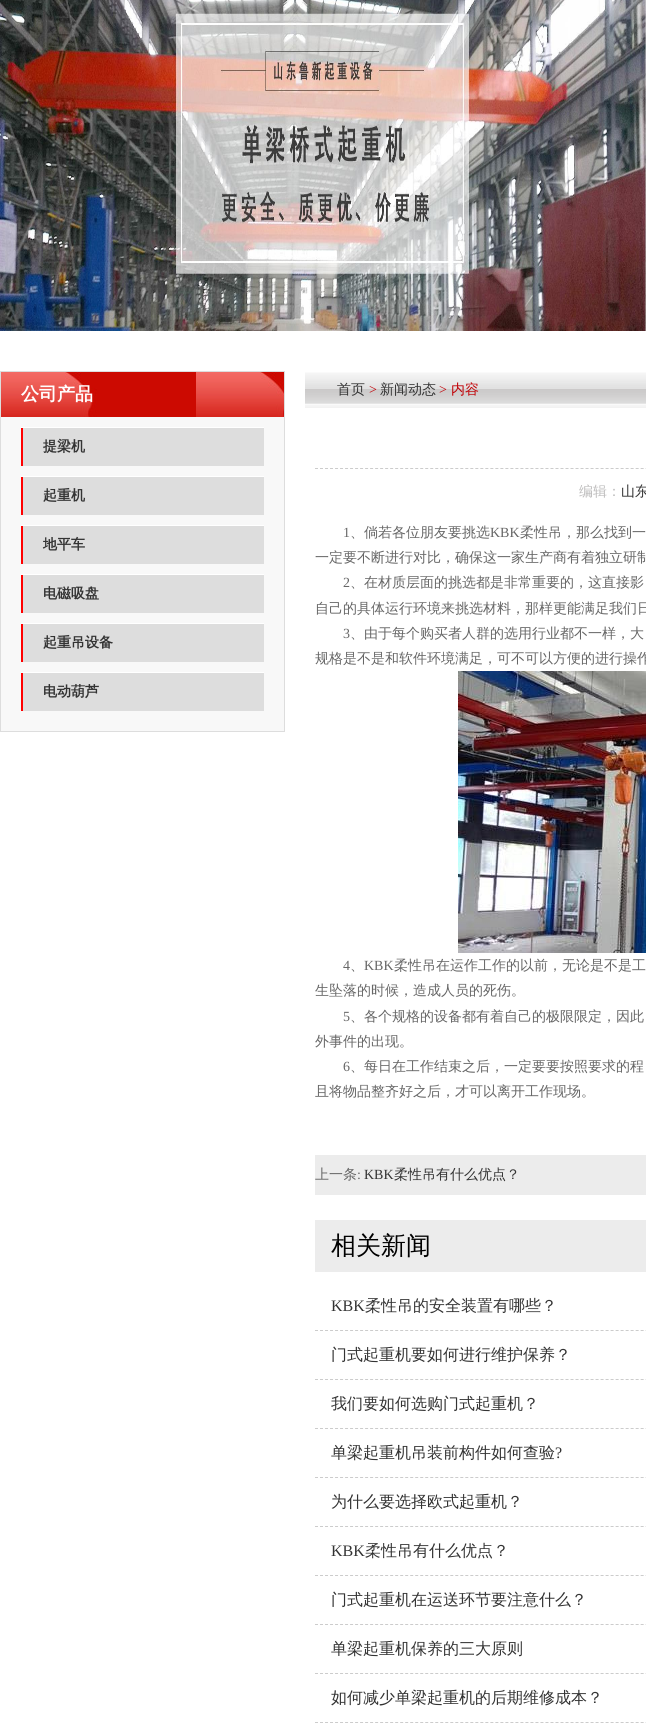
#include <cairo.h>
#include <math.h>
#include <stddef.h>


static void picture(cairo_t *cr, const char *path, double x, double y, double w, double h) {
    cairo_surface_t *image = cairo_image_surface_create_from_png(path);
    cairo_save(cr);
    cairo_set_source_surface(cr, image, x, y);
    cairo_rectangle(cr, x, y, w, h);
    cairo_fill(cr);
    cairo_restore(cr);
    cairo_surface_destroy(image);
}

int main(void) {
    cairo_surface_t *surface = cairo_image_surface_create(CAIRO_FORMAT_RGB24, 646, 1733);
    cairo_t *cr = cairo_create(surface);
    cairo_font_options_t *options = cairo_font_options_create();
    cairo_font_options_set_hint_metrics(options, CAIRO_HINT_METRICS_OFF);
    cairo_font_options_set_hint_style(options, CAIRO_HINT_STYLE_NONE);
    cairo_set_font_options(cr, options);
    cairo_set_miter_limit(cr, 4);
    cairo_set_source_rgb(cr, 1, 1, 1);
    cairo_paint(cr);
    picture(cr, "img1.png", 0, 0, 646, 331);
    cairo_set_source_rgb(cr, 0.969, 0.969, 0.969);
    cairo_rectangle(cr, 1, 417, 283, 314);
    cairo_fill(cr);
    cairo_rectangle(cr, 0.5, 371.5, 284, 360);
    cairo_set_source_rgb(cr, 0.867, 0.867, 0.867);
    cairo_set_line_width(cr, 1);
    cairo_stroke(cr);
    picture(cr, "img2.png", 1, 372, 283, 45);
    cairo_select_font_face(cr, "WenQuanYi Zen Hei", CAIRO_FONT_SLANT_NORMAL, CAIRO_FONT_WEIGHT_BOLD);
    cairo_set_font_size(cr, 18);
    cairo_set_source_rgb(cr, 1, 1, 1);
    cairo_move_to(cr, 21, 400);
    cairo_show_text(cr, "公司产品");
    cairo_rectangle(cr, 21, 427, 243, 1);
    cairo_fill(cr);
    cairo_set_source_rgb(cr, 0.867, 0.867, 0.867);
    cairo_rectangle(cr, 23, 428, 241, 38);
    cairo_fill(cr);
    cairo_set_source_rgb(cr, 1, 0, 0);
    cairo_rectangle(cr, 21, 428, 2, 38);
    cairo_fill(cr);
    cairo_set_font_size(cr, 14);
    cairo_set_source_rgb(cr, 0.2, 0.2, 0.2);
    cairo_move_to(cr, 43, 451);
    cairo_show_text(cr, "提梁机");
    cairo_set_source_rgb(cr, 1, 1, 1);
    cairo_rectangle(cr, 21, 476, 243, 1);
    cairo_fill(cr);
    cairo_set_source_rgb(cr, 0.867, 0.867, 0.867);
    cairo_rectangle(cr, 23, 477, 241, 38);
    cairo_fill(cr);
    cairo_set_source_rgb(cr, 1, 0, 0);
    cairo_rectangle(cr, 21, 477, 2, 38);
    cairo_fill(cr);
    cairo_set_source_rgb(cr, 0.2, 0.2, 0.2);
    cairo_move_to(cr, 43, 500);
    cairo_show_text(cr, "起重机");
    cairo_set_source_rgb(cr, 1, 1, 1);
    cairo_rectangle(cr, 21, 525, 243, 1);
    cairo_fill(cr);
    cairo_set_source_rgb(cr, 0.867, 0.867, 0.867);
    cairo_rectangle(cr, 23, 526, 241, 38);
    cairo_fill(cr);
    cairo_set_source_rgb(cr, 1, 0, 0);
    cairo_rectangle(cr, 21, 526, 2, 38);
    cairo_fill(cr);
    cairo_set_source_rgb(cr, 0.2, 0.2, 0.2);
    cairo_move_to(cr, 43, 549);
    cairo_show_text(cr, "地平车");
    cairo_set_source_rgb(cr, 1, 1, 1);
    cairo_rectangle(cr, 21, 574, 243, 1);
    cairo_fill(cr);
    cairo_set_source_rgb(cr, 0.867, 0.867, 0.867);
    cairo_rectangle(cr, 23, 575, 241, 38);
    cairo_fill(cr);
    cairo_set_source_rgb(cr, 1, 0, 0);
    cairo_rectangle(cr, 21, 575, 2, 38);
    cairo_fill(cr);
    cairo_set_source_rgb(cr, 0.2, 0.2, 0.2);
    cairo_move_to(cr, 43, 598);
    cairo_show_text(cr, "电磁吸盘");
    cairo_set_source_rgb(cr, 1, 1, 1);
    cairo_rectangle(cr, 21, 623, 243, 1);
    cairo_fill(cr);
    cairo_set_source_rgb(cr, 0.867, 0.867, 0.867);
    cairo_rectangle(cr, 23, 624, 241, 38);
    cairo_fill(cr);
    cairo_set_source_rgb(cr, 1, 0, 0);
    cairo_rectangle(cr, 21, 624, 2, 38);
    cairo_fill(cr);
    cairo_set_source_rgb(cr, 0.2, 0.2, 0.2);
    cairo_move_to(cr, 43, 647);
    cairo_show_text(cr, "起重吊设备");
    cairo_set_source_rgb(cr, 1, 1, 1);
    cairo_rectangle(cr, 21, 672, 243, 1);
    cairo_fill(cr);
    cairo_set_source_rgb(cr, 0.867, 0.867, 0.867);
    cairo_rectangle(cr, 23, 673, 241, 38);
    cairo_fill(cr);
    cairo_set_source_rgb(cr, 1, 0, 0);
    cairo_rectangle(cr, 21, 673, 2, 38);
    cairo_fill(cr);
    cairo_set_source_rgb(cr, 0.2, 0.2, 0.2);
    cairo_move_to(cr, 43, 696);
    cairo_show_text(cr, "电动葫芦");
    picture(cr, "img3.png", 305, 372, 341, 36);
    cairo_select_font_face(cr, "WenQuanYi Zen Hei Medium", CAIRO_FONT_SLANT_NORMAL, CAIRO_FONT_WEIGHT_NORMAL);
    cairo_move_to(cr, 337, 394);
    cairo_show_text(cr, "首页");
    cairo_select_font_face(cr, "Liberation Serif", CAIRO_FONT_SLANT_NORMAL, CAIRO_FONT_WEIGHT_NORMAL);
    cairo_set_source_rgb(cr, 0.757, 0, 0.02);
    cairo_move_to(cr, 369, 394);
    cairo_show_text(cr, ">");
    cairo_select_font_face(cr, "WenQuanYi Zen Hei Medium", CAIRO_FONT_SLANT_NORMAL, CAIRO_FONT_WEIGHT_NORMAL);
    cairo_set_source_rgb(cr, 0.2, 0.2, 0.2);
    cairo_move_to(cr, 380, 394);
    cairo_show_text(cr, "新闻动态");
    cairo_select_font_face(cr, "Liberation Serif", CAIRO_FONT_SLANT_NORMAL, CAIRO_FONT_WEIGHT_NORMAL);
    cairo_set_source_rgb(cr, 0.757, 0, 0.02);
    cairo_move_to(cr, 439, 394);
    cairo_show_text(cr, ">");
    cairo_select_font_face(cr, "WenQuanYi Zen Hei Medium", CAIRO_FONT_SLANT_NORMAL, CAIRO_FONT_WEIGHT_NORMAL);
    cairo_move_to(cr, 451, 394);
    cairo_show_text(cr, "内容");
    cairo_new_path(cr);
    cairo_move_to(cr, 315, 468.5);
    cairo_line_to(cr, 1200, 468.5);
    cairo_set_source_rgb(cr, 0.8, 0.8, 0.8);
    cairo_set_dash(cr, (double[]){3, 2.01}, 2, 0);
    cairo_stroke(cr);
    cairo_set_source_rgb(cr, 0.737, 0.733, 0.733);
    cairo_move_to(cr, 579, 496);
    cairo_show_text(cr, "编辑：");
    cairo_set_source_rgb(cr, 0.2, 0.2, 0.2);
    cairo_move_to(cr, 621, 496);
    cairo_show_text(cr, "山东");
    cairo_select_font_face(cr, "Liberation Serif", CAIRO_FONT_SLANT_NORMAL, CAIRO_FONT_WEIGHT_NORMAL);
    cairo_set_source_rgb(cr, 0.4, 0.4, 0.4);
    cairo_move_to(cr, 343, 537);
    cairo_show_text(cr, "1");
    cairo_select_font_face(cr, "WenQuanYi Zen Hei Medium", CAIRO_FONT_SLANT_NORMAL, CAIRO_FONT_WEIGHT_NORMAL);
    cairo_move_to(cr, 350, 537);
    cairo_show_text(cr, "、倘若各位朋友要挑选");
    cairo_select_font_face(cr, "Liberation Serif", CAIRO_FONT_SLANT_NORMAL, CAIRO_FONT_WEIGHT_NORMAL);
    cairo_move_to(cr, 490, 537);
    cairo_show_text(cr, "KBK");
    cairo_select_font_face(cr, "WenQuanYi Zen Hei Medium", CAIRO_FONT_SLANT_NORMAL, CAIRO_FONT_WEIGHT_NORMAL);
    cairo_move_to(cr, 520, 537);
    cairo_show_text(cr, "柔性吊，那么找到一");
    cairo_move_to(cr, 315, 562);
    cairo_show_text(cr, "一定要不断进行对比，确保这一家生产商有着独立研制");
    cairo_select_font_face(cr, "Liberation Serif", CAIRO_FONT_SLANT_NORMAL, CAIRO_FONT_WEIGHT_NORMAL);
    cairo_move_to(cr, 343, 587);
    cairo_show_text(cr, "2");
    cairo_select_font_face(cr, "WenQuanYi Zen Hei Medium", CAIRO_FONT_SLANT_NORMAL, CAIRO_FONT_WEIGHT_NORMAL);
    cairo_move_to(cr, 350, 587);
    cairo_show_text(cr, "、在材质层面的挑选都是非常重要的，这直接影");
    cairo_move_to(cr, 315, 613);
    cairo_show_text(cr, "自己的具体运行环境来挑选材料，那样更能满足我们日");
    cairo_select_font_face(cr, "Liberation Serif", CAIRO_FONT_SLANT_NORMAL, CAIRO_FONT_WEIGHT_NORMAL);
    cairo_move_to(cr, 343, 638);
    cairo_show_text(cr, "3");
    cairo_select_font_face(cr, "WenQuanYi Zen Hei Medium", CAIRO_FONT_SLANT_NORMAL, CAIRO_FONT_WEIGHT_NORMAL);
    cairo_move_to(cr, 350, 638);
    cairo_show_text(cr, "、由于每个购买者人群的选用行业都不一样，大");
    cairo_move_to(cr, 315, 663);
    cairo_show_text(cr, "规格是不是和软件环境满足，可不可以方便的进行操作");
    picture(cr, "img4.png", 458, 671, 188, 282);
    cairo_select_font_face(cr, "Liberation Serif", CAIRO_FONT_SLANT_NORMAL, CAIRO_FONT_WEIGHT_NORMAL);
    cairo_move_to(cr, 343, 970);
    cairo_show_text(cr, "4");
    cairo_select_font_face(cr, "WenQuanYi Zen Hei Medium", CAIRO_FONT_SLANT_NORMAL, CAIRO_FONT_WEIGHT_NORMAL);
    cairo_move_to(cr, 350, 970);
    cairo_show_text(cr, "、");
    cairo_select_font_face(cr, "Liberation Serif", CAIRO_FONT_SLANT_NORMAL, CAIRO_FONT_WEIGHT_NORMAL);
    cairo_move_to(cr, 364, 970);
    cairo_show_text(cr, "KBK");
    cairo_select_font_face(cr, "WenQuanYi Zen Hei Medium", CAIRO_FONT_SLANT_NORMAL, CAIRO_FONT_WEIGHT_NORMAL);
    cairo_move_to(cr, 394, 970);
    cairo_show_text(cr, "柔性吊在运作工作的以前，无论是不是工");
    cairo_move_to(cr, 315, 995);
    cairo_show_text(cr, "生坠落的时候，造成人员的死伤。");
    cairo_select_font_face(cr, "Liberation Serif", CAIRO_FONT_SLANT_NORMAL, CAIRO_FONT_WEIGHT_NORMAL);
    cairo_move_to(cr, 343, 1021);
    cairo_show_text(cr, "5");
    cairo_select_font_face(cr, "WenQuanYi Zen Hei Medium", CAIRO_FONT_SLANT_NORMAL, CAIRO_FONT_WEIGHT_NORMAL);
    cairo_move_to(cr, 350, 1021);
    cairo_show_text(cr, "、各个规格的设备都有着自己的极限限定，因此");
    cairo_move_to(cr, 315, 1046);
    cairo_show_text(cr, "外事件的出现。");
    cairo_select_font_face(cr, "Liberation Serif", CAIRO_FONT_SLANT_NORMAL, CAIRO_FONT_WEIGHT_NORMAL);
    cairo_move_to(cr, 343, 1071);
    cairo_show_text(cr, "6");
    cairo_select_font_face(cr, "WenQuanYi Zen Hei Medium", CAIRO_FONT_SLANT_NORMAL, CAIRO_FONT_WEIGHT_NORMAL);
    cairo_move_to(cr, 350, 1071);
    cairo_show_text(cr, "、每日在工作结束之后，一定要要按照要求的程");
    cairo_move_to(cr, 315, 1096);
    cairo_show_text(cr, "且将物品整齐好之后，才可以离开工作现场。");
    cairo_set_source_rgb(cr, 0.922, 0.922, 0.922);
    cairo_rectangle(cr, 315, 1155, 331, 40);
    cairo_fill(cr);
    cairo_set_source_rgb(cr, 0.4, 0.4, 0.4);
    cairo_move_to(cr, 315, 1179);
    cairo_show_text(cr, "上一条");
    cairo_select_font_face(cr, "Liberation Serif", CAIRO_FONT_SLANT_NORMAL, CAIRO_FONT_WEIGHT_NORMAL);
    cairo_move_to(cr, 357, 1179);
    cairo_show_text(cr, ":");
    cairo_set_source_rgb(cr, 0.2, 0.2, 0.2);
    cairo_move_to(cr, 364, 1179);
    cairo_show_text(cr, "KBK");
    cairo_select_font_face(cr, "WenQuanYi Zen Hei Medium", CAIRO_FONT_SLANT_NORMAL, CAIRO_FONT_WEIGHT_NORMAL);
    cairo_move_to(cr, 394, 1179);
    cairo_show_text(cr, "柔性吊有什么优点？");
    cairo_set_source_rgb(cr, 0.922, 0.922, 0.922);
    cairo_rectangle(cr, 315, 1220, 331, 52);
    cairo_fill(cr);
    cairo_set_font_size(cr, 25);
    cairo_set_source_rgb(cr, 0, 0, 0);
    cairo_move_to(cr, 331, 1254);
    cairo_show_text(cr, "相关新闻");
    cairo_new_path(cr);
    cairo_move_to(cr, 315, 1330.5);
    cairo_line_to(cr, 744, 1330.5);
    cairo_set_source_rgb(cr, 0.8, 0.8, 0.8);
    cairo_stroke(cr);
    cairo_select_font_face(cr, "Liberation Serif", CAIRO_FONT_SLANT_NORMAL, CAIRO_FONT_WEIGHT_NORMAL);
    cairo_set_font_size(cr, 16);
    cairo_set_source_rgb(cr, 0.2, 0.2, 0.2);
    cairo_move_to(cr, 331, 1311);
    cairo_show_text(cr, "KBK");
    cairo_select_font_face(cr, "WenQuanYi Zen Hei Medium", CAIRO_FONT_SLANT_NORMAL, CAIRO_FONT_WEIGHT_NORMAL);
    cairo_move_to(cr, 365, 1311);
    cairo_show_text(cr, "柔性吊的安全装置有哪些？");
    cairo_new_path(cr);
    cairo_move_to(cr, 315, 1379.5);
    cairo_line_to(cr, 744, 1379.5);
    cairo_set_source_rgb(cr, 0.8, 0.8, 0.8);
    cairo_stroke(cr);
    cairo_set_source_rgb(cr, 0.2, 0.2, 0.2);
    cairo_move_to(cr, 331, 1360);
    cairo_show_text(cr, "门式起重机要如何进行维护保养？");
    cairo_new_path(cr);
    cairo_move_to(cr, 315, 1428.5);
    cairo_line_to(cr, 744, 1428.5);
    cairo_set_source_rgb(cr, 0.8, 0.8, 0.8);
    cairo_stroke(cr);
    cairo_set_source_rgb(cr, 0.2, 0.2, 0.2);
    cairo_move_to(cr, 331, 1409);
    cairo_show_text(cr, "我们要如何选购门式起重机？");
    cairo_new_path(cr);
    cairo_move_to(cr, 315, 1477.5);
    cairo_line_to(cr, 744, 1477.5);
    cairo_set_source_rgb(cr, 0.8, 0.8, 0.8);
    cairo_stroke(cr);
    cairo_set_source_rgb(cr, 0.2, 0.2, 0.2);
    cairo_move_to(cr, 331, 1458);
    cairo_show_text(cr, "单梁起重机吊装前构件如何查验");
    cairo_select_font_face(cr, "Liberation Serif", CAIRO_FONT_SLANT_NORMAL, CAIRO_FONT_WEIGHT_NORMAL);
    cairo_move_to(cr, 555, 1458);
    cairo_show_text(cr, "?");
    cairo_new_path(cr);
    cairo_move_to(cr, 315, 1526.5);
    cairo_line_to(cr, 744, 1526.5);
    cairo_set_source_rgb(cr, 0.8, 0.8, 0.8);
    cairo_stroke(cr);
    cairo_select_font_face(cr, "WenQuanYi Zen Hei Medium", CAIRO_FONT_SLANT_NORMAL, CAIRO_FONT_WEIGHT_NORMAL);
    cairo_set_source_rgb(cr, 0.2, 0.2, 0.2);
    cairo_move_to(cr, 331, 1507);
    cairo_show_text(cr, "为什么要选择欧式起重机？");
    cairo_new_path(cr);
    cairo_move_to(cr, 315, 1575.5);
    cairo_line_to(cr, 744, 1575.5);
    cairo_set_source_rgb(cr, 0.8, 0.8, 0.8);
    cairo_stroke(cr);
    cairo_select_font_face(cr, "Liberation Serif", CAIRO_FONT_SLANT_NORMAL, CAIRO_FONT_WEIGHT_NORMAL);
    cairo_set_source_rgb(cr, 0.2, 0.2, 0.2);
    cairo_move_to(cr, 331, 1556);
    cairo_show_text(cr, "KBK");
    cairo_select_font_face(cr, "WenQuanYi Zen Hei Medium", CAIRO_FONT_SLANT_NORMAL, CAIRO_FONT_WEIGHT_NORMAL);
    cairo_move_to(cr, 365, 1556);
    cairo_show_text(cr, "柔性吊有什么优点？");
    cairo_new_path(cr);
    cairo_move_to(cr, 315, 1624.5);
    cairo_line_to(cr, 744, 1624.5);
    cairo_set_source_rgb(cr, 0.8, 0.8, 0.8);
    cairo_stroke(cr);
    cairo_set_source_rgb(cr, 0.2, 0.2, 0.2);
    cairo_move_to(cr, 331, 1605);
    cairo_show_text(cr, "门式起重机在运送环节要注意什么？");
    cairo_new_path(cr);
    cairo_move_to(cr, 315, 1673.5);
    cairo_line_to(cr, 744, 1673.5);
    cairo_set_source_rgb(cr, 0.8, 0.8, 0.8);
    cairo_stroke(cr);
    cairo_set_source_rgb(cr, 0.2, 0.2, 0.2);
    cairo_move_to(cr, 331, 1654);
    cairo_show_text(cr, "单梁起重机保养的三大原则");
    cairo_new_path(cr);
    cairo_move_to(cr, 315, 1722.5);
    cairo_line_to(cr, 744, 1722.5);
    cairo_set_source_rgb(cr, 0.8, 0.8, 0.8);
    cairo_stroke(cr);
    cairo_set_source_rgb(cr, 0.2, 0.2, 0.2);
    cairo_move_to(cr, 331, 1703);
    cairo_show_text(cr, "如何减少单梁起重机的后期维修成本？");
    cairo_surface_write_to_png(surface, "page.png");
    cairo_font_options_destroy(options);
    cairo_destroy(cr);
    cairo_surface_destroy(surface);
    return 0;
}
